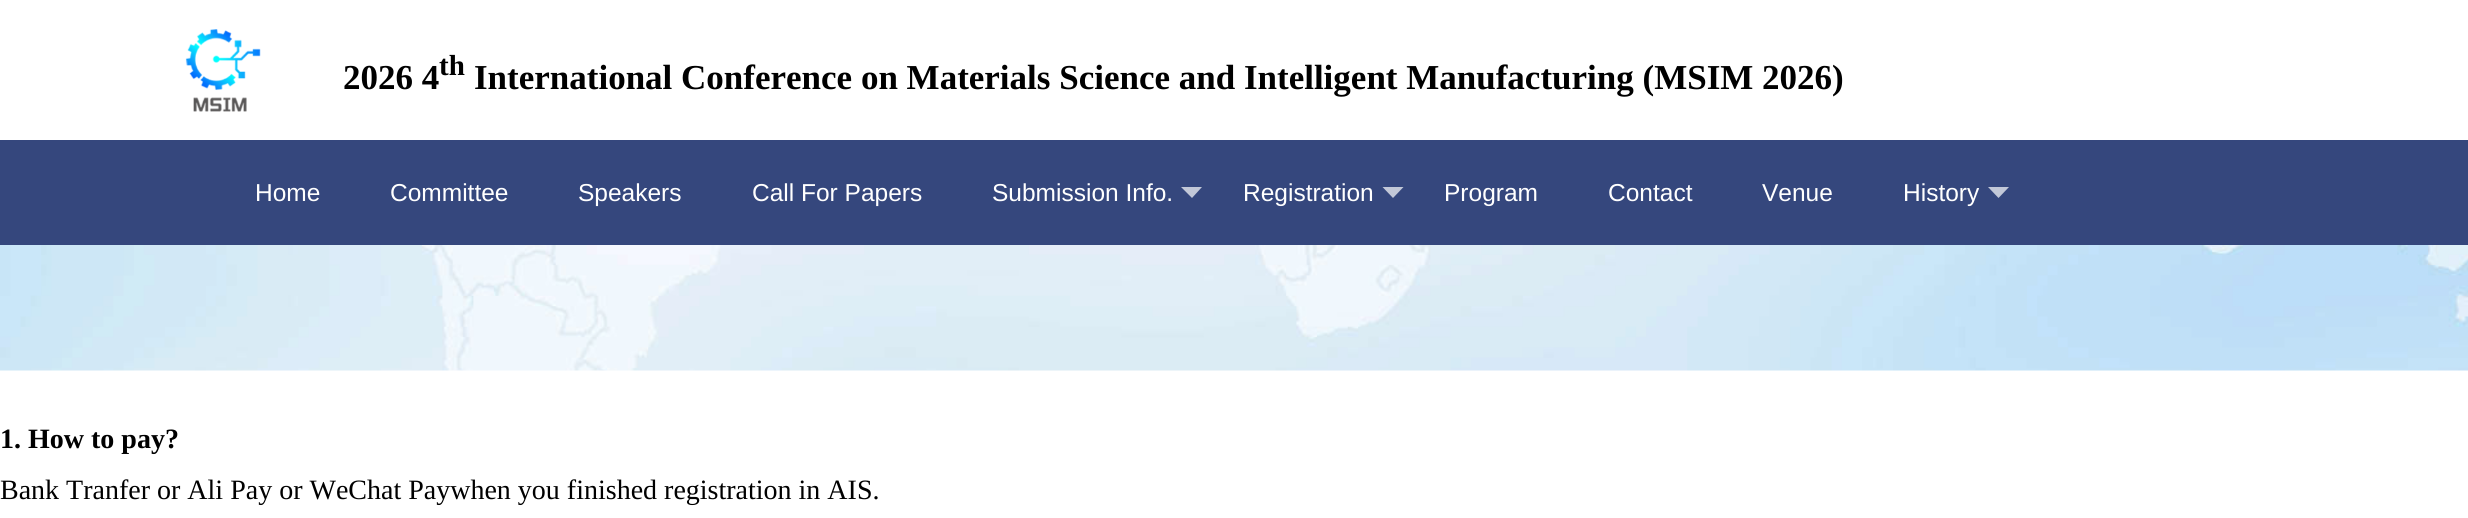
#include <cairo.h>
#include <math.h>
#include <stddef.h>


static void picture(cairo_t *cr, const char *path, double x, double y, double w, double h) {
    cairo_surface_t *image = cairo_image_surface_create_from_png(path);
    cairo_save(cr);
    cairo_set_source_surface(cr, image, x, y);
    cairo_rectangle(cr, x, y, w, h);
    cairo_fill(cr);
    cairo_restore(cr);
    cairo_surface_destroy(image);
}

int main(void) {
    cairo_surface_t *surface = cairo_image_surface_create(CAIRO_FORMAT_RGB24, 2468, 518);
    cairo_t *cr = cairo_create(surface);
    cairo_font_options_t *options = cairo_font_options_create();
    cairo_font_options_set_hint_metrics(options, CAIRO_HINT_METRICS_OFF);
    cairo_font_options_set_hint_style(options, CAIRO_HINT_STYLE_NONE);
    cairo_set_font_options(cr, options);
    cairo_set_miter_limit(cr, 4);
    cairo_set_source_rgb(cr, 1, 1, 1);
    cairo_paint(cr);
    picture(cr, "img1.png", 185, 29, 76, 83);
    cairo_select_font_face(cr, "Liberation Serif", CAIRO_FONT_SLANT_NORMAL, CAIRO_FONT_WEIGHT_BOLD);
    cairo_set_font_size(cr, 35);
    cairo_set_source_rgb(cr, 0, 0, 0);
    cairo_move_to(cr, 343, 89);
    cairo_show_text(cr, "2026 4");
    cairo_set_font_size(cr, 29);
    cairo_move_to(cr, 439, 75);
    cairo_show_text(cr, "th");
    cairo_set_font_size(cr, 35);
    cairo_move_to(cr, 474, 89);
    cairo_show_text(cr, "International Conference on Materials Science and Intelligent Manufacturing (MSIM 2026)");
    cairo_set_source_rgb(cr, 0.208, 0.278, 0.49);
    cairo_rectangle(cr, 0, 140, 2468, 105);
    cairo_fill(cr);
    cairo_select_font_face(cr, "Liberation Sans", CAIRO_FONT_SLANT_NORMAL, CAIRO_FONT_WEIGHT_NORMAL);
    cairo_set_font_size(cr, 24.5);
    cairo_set_source_rgb(cr, 1, 1, 1);
    cairo_move_to(cr, 255, 201);
    cairo_show_text(cr, "Home");
    cairo_move_to(cr, 390, 201);
    cairo_show_text(cr, "Committee");
    cairo_move_to(cr, 578, 201);
    cairo_show_text(cr, "Speakers");
    cairo_move_to(cr, 752, 201);
    cairo_show_text(cr, "Call For Papers");
    cairo_move_to(cr, 992, 201);
    cairo_show_text(cr, "Submission Info.");
    cairo_set_source_rgb(cr, 0.761, 0.784, 0.847);
    cairo_new_path(cr);
    cairo_move_to(cr, 1181, 187);
    cairo_line_to(cr, 1202, 187);
    cairo_line_to(cr, 1192, 198);
    cairo_close_path(cr);
    cairo_fill(cr);
    cairo_set_source_rgb(cr, 1, 1, 1);
    cairo_move_to(cr, 1243, 201);
    cairo_show_text(cr, "Registration");
    cairo_set_source_rgb(cr, 0.761, 0.784, 0.847);
    cairo_new_path(cr);
    cairo_move_to(cr, 1382.5, 187);
    cairo_line_to(cr, 1403.5, 187);
    cairo_line_to(cr, 1393, 198);
    cairo_close_path(cr);
    cairo_fill(cr);
    cairo_set_source_rgb(cr, 1, 1, 1);
    cairo_move_to(cr, 1444, 201);
    cairo_show_text(cr, "Program");
    cairo_move_to(cr, 1608, 201);
    cairo_show_text(cr, "Contact");
    cairo_move_to(cr, 1762, 201);
    cairo_show_text(cr, "Venue");
    cairo_move_to(cr, 1903, 201);
    cairo_show_text(cr, "History");
    cairo_set_source_rgb(cr, 0.761, 0.784, 0.847);
    cairo_new_path(cr);
    cairo_move_to(cr, 1988, 187);
    cairo_line_to(cr, 2009, 187);
    cairo_line_to(cr, 1998.5, 198);
    cairo_close_path(cr);
    cairo_fill(cr);
    picture(cr, "img2.png", 0, 245, 2468, 126);
    cairo_select_font_face(cr, "Liberation Serif", CAIRO_FONT_SLANT_NORMAL, CAIRO_FONT_WEIGHT_BOLD);
    cairo_set_font_size(cr, 28);
    cairo_set_source_rgb(cr, 0, 0, 0);
    cairo_move_to(cr, 0, 448);
    cairo_show_text(cr, "1. How to pay?");
    cairo_select_font_face(cr, "Liberation Serif", CAIRO_FONT_SLANT_NORMAL, CAIRO_FONT_WEIGHT_NORMAL);
    cairo_move_to(cr, 0, 499);
    cairo_show_text(cr, "Bank Tranfer or Ali Pay or WeChat Paywhen you finished registration in AIS.");
    cairo_surface_write_to_png(surface, "page.png");
    cairo_font_options_destroy(options);
    cairo_destroy(cr);
    cairo_surface_destroy(surface);
    return 0;
}
